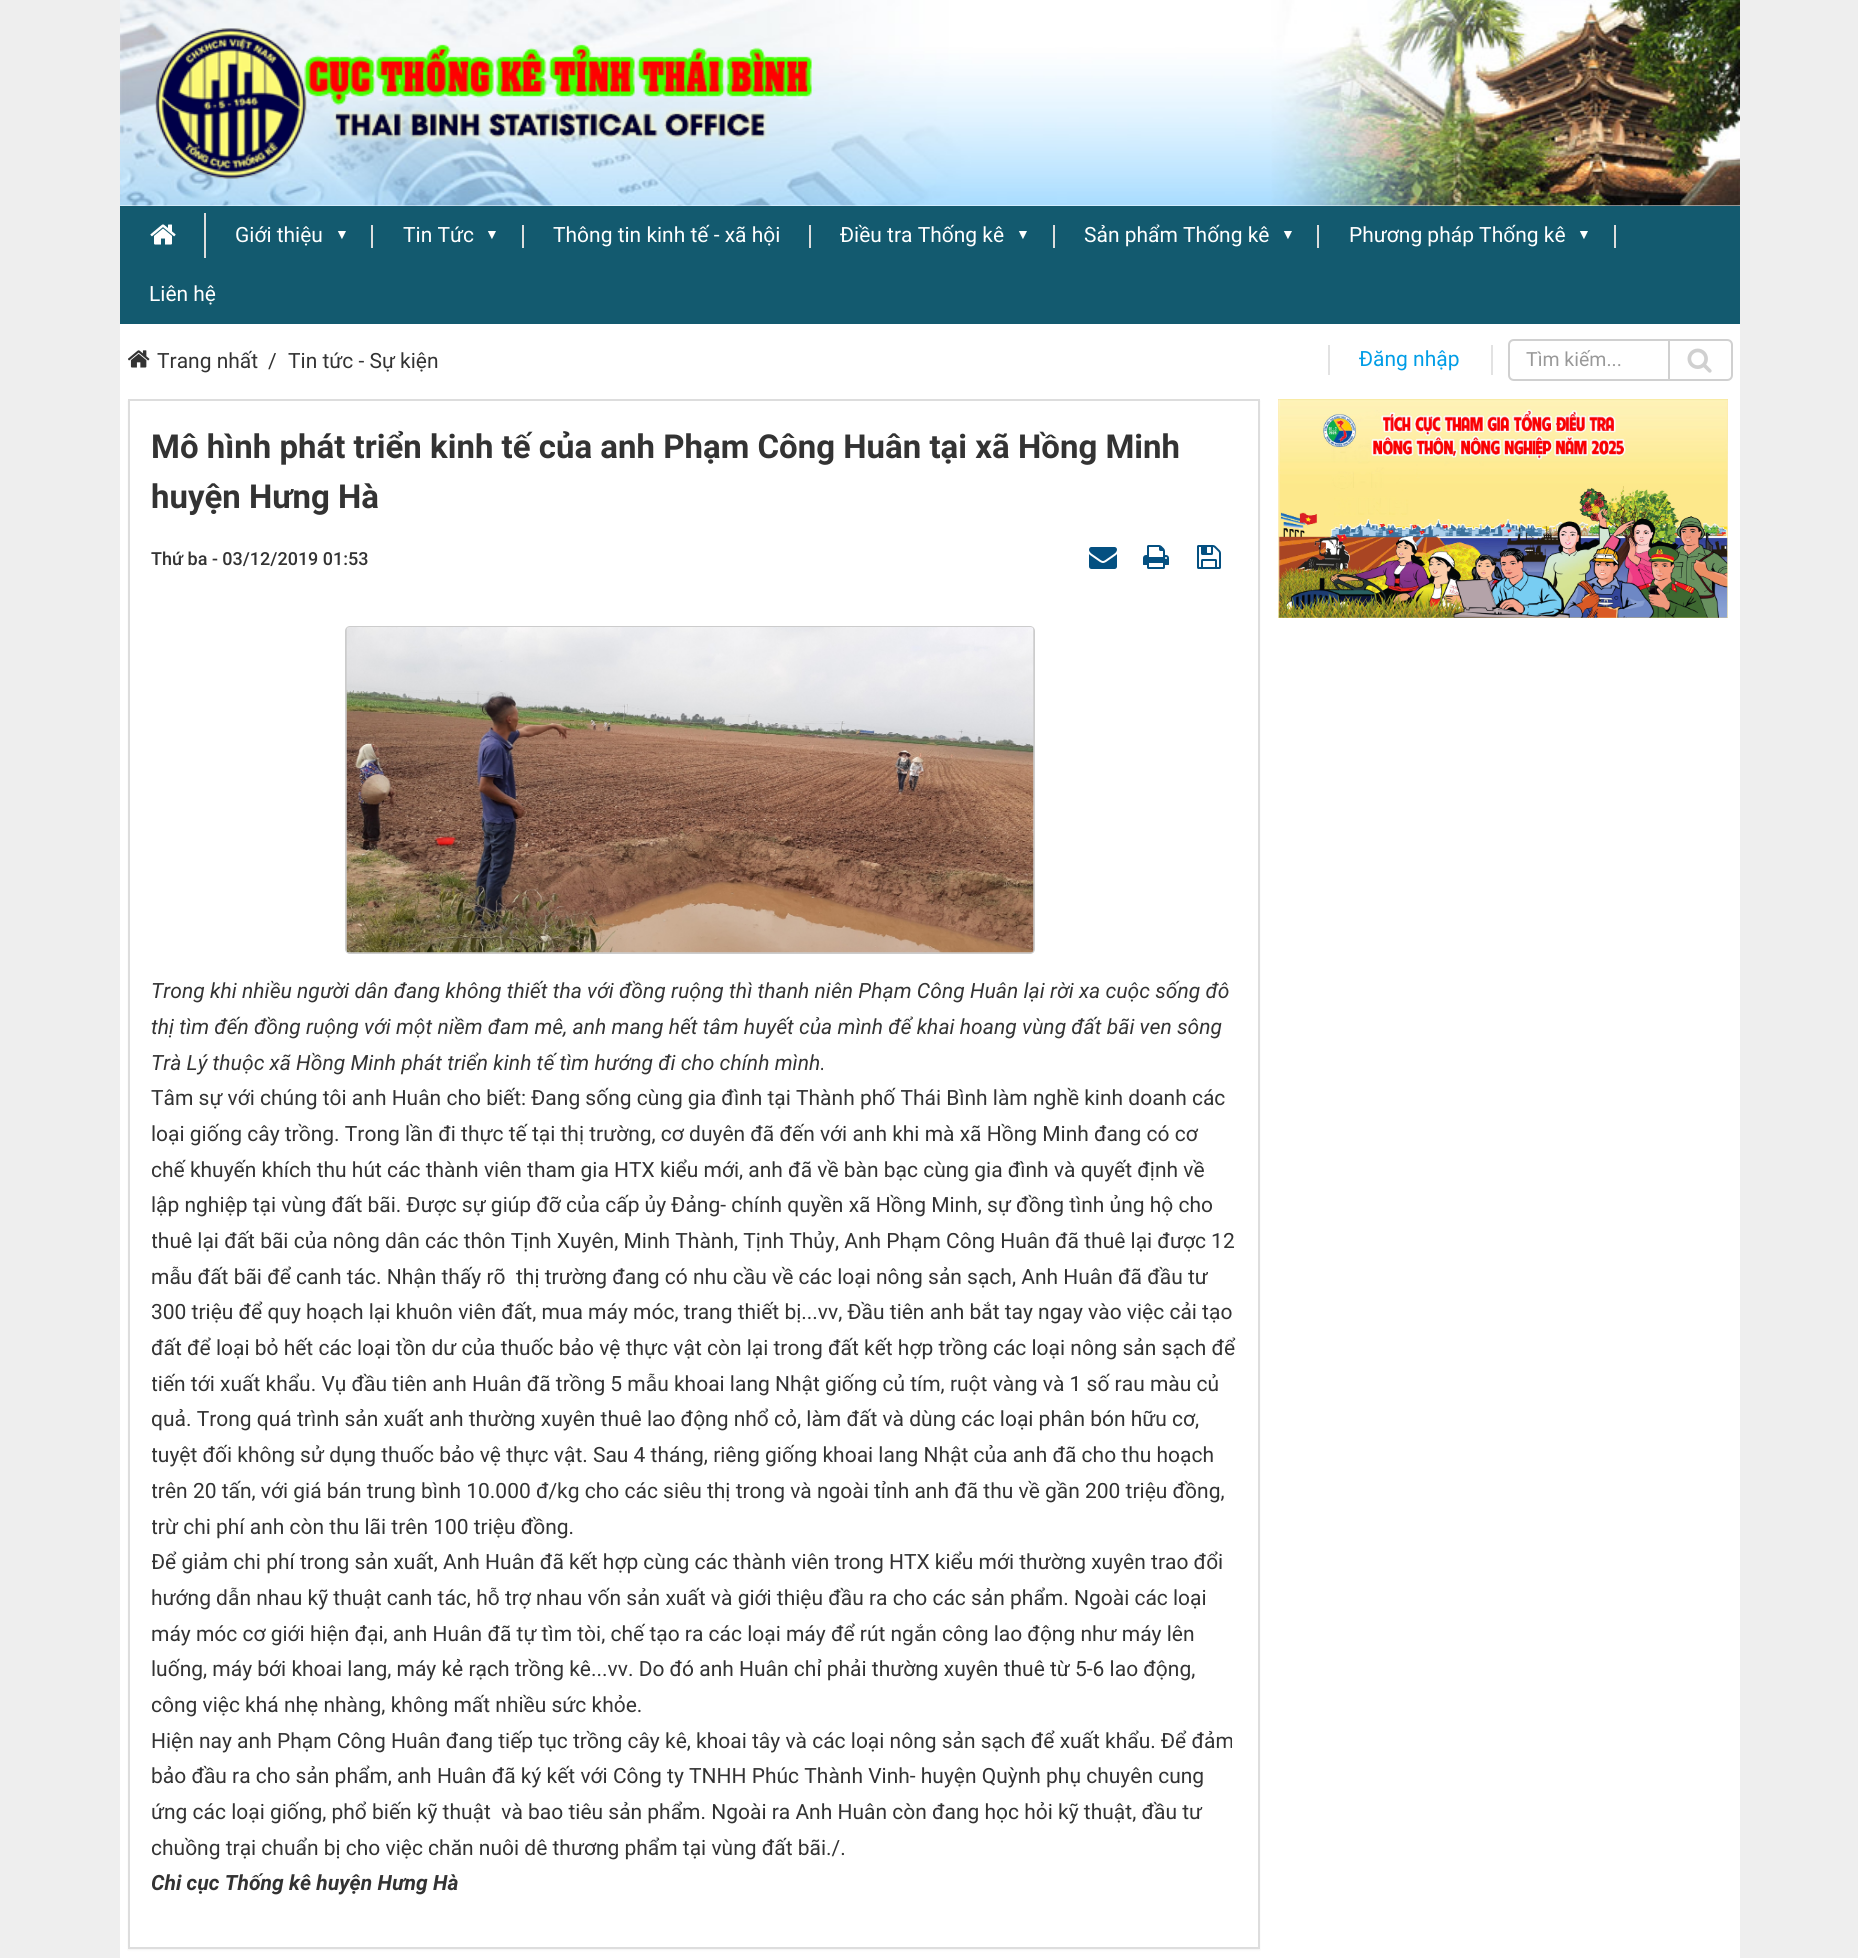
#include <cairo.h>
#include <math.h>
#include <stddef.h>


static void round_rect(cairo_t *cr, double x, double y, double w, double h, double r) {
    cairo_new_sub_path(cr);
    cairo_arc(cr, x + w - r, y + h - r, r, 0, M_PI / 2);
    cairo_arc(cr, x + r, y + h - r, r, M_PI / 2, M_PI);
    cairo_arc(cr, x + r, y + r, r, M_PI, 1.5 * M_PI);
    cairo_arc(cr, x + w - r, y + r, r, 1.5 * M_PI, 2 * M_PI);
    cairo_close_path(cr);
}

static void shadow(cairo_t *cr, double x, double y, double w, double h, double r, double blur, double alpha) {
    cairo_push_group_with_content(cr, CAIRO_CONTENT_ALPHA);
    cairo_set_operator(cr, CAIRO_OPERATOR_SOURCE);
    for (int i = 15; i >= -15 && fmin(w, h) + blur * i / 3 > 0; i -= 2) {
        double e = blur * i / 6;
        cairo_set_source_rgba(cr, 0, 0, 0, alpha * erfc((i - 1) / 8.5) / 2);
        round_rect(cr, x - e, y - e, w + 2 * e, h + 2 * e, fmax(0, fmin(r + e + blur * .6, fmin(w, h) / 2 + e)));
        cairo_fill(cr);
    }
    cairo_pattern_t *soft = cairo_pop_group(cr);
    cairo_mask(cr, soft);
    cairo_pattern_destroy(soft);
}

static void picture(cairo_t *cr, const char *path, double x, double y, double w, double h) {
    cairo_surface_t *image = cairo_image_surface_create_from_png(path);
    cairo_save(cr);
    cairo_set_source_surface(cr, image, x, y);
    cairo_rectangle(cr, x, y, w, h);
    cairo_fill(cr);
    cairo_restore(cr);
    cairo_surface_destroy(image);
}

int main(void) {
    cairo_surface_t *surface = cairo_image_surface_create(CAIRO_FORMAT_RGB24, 1858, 1958);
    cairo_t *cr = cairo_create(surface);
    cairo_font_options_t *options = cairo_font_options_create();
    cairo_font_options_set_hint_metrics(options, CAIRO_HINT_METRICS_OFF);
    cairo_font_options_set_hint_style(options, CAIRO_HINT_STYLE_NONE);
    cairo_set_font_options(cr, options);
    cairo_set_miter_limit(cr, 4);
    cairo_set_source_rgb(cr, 0.933, 0.933, 0.933);
    cairo_paint(cr);
    cairo_set_source_rgb(cr, 1, 1, 1);
    cairo_rectangle(cr, 120, 205, 1620, 1);
    cairo_fill(cr);
    picture(cr, "img1.png", 120, 0, 1620, 206);
    picture(cr, "img2.png", 155, 28, 657, 151);
    cairo_set_source_rgb(cr, 0.075, 0.353, 0.435);
    cairo_rectangle(cr, 120, 206, 1620, 118);
    cairo_fill(cr);
    picture(cr, "img3.png", 150, 224, 26, 21);
    cairo_set_source_rgb(cr, 0.867, 0.867, 0.867);
    cairo_rectangle(cr, 204, 213, 2, 45);
    cairo_fill(cr);
    cairo_select_font_face(cr, "Roboto", CAIRO_FONT_SLANT_NORMAL, CAIRO_FONT_WEIGHT_NORMAL);
    cairo_set_font_size(cr, 21);
    cairo_set_source_rgb(cr, 1, 1, 1);
    cairo_move_to(cr, 235, 242);
    cairo_show_text(cr, "Giới thiệu");
    cairo_set_source_rgb(cr, 0.867, 0.867, 0.867);
    cairo_rectangle(cr, 371, 225, 2, 23);
    cairo_fill(cr);
    cairo_select_font_face(cr, "Liberation Sans", CAIRO_FONT_SLANT_ITALIC, CAIRO_FONT_WEIGHT_NORMAL);
    cairo_set_font_size(cr, 14);
    cairo_set_source_rgb(cr, 1, 1, 1);
    cairo_move_to(cr, 335, 239);
    cairo_show_text(cr, "▼");
    cairo_select_font_face(cr, "Roboto", CAIRO_FONT_SLANT_NORMAL, CAIRO_FONT_WEIGHT_NORMAL);
    cairo_set_font_size(cr, 21);
    cairo_move_to(cr, 403, 242);
    cairo_show_text(cr, "Tin Tức");
    cairo_set_source_rgb(cr, 0.867, 0.867, 0.867);
    cairo_rectangle(cr, 522, 225, 2, 23);
    cairo_fill(cr);
    cairo_select_font_face(cr, "Liberation Sans", CAIRO_FONT_SLANT_ITALIC, CAIRO_FONT_WEIGHT_NORMAL);
    cairo_set_font_size(cr, 14);
    cairo_set_source_rgb(cr, 1, 1, 1);
    cairo_move_to(cr, 485, 239);
    cairo_show_text(cr, "▼");
    cairo_select_font_face(cr, "Roboto", CAIRO_FONT_SLANT_NORMAL, CAIRO_FONT_WEIGHT_NORMAL);
    cairo_set_font_size(cr, 21);
    cairo_move_to(cr, 553, 242);
    cairo_show_text(cr, "Thông tin kinh tế - xã hội");
    cairo_set_source_rgb(cr, 0.867, 0.867, 0.867);
    cairo_rectangle(cr, 809, 225, 2, 23);
    cairo_fill(cr);
    cairo_set_source_rgb(cr, 1, 1, 1);
    cairo_move_to(cr, 840, 242);
    cairo_show_text(cr, "Điều tra Thống kê");
    cairo_set_source_rgb(cr, 0.867, 0.867, 0.867);
    cairo_rectangle(cr, 1053, 225, 2, 23);
    cairo_fill(cr);
    cairo_select_font_face(cr, "Liberation Sans", CAIRO_FONT_SLANT_ITALIC, CAIRO_FONT_WEIGHT_NORMAL);
    cairo_set_font_size(cr, 14);
    cairo_set_source_rgb(cr, 1, 1, 1);
    cairo_move_to(cr, 1016, 239);
    cairo_show_text(cr, "▼");
    cairo_select_font_face(cr, "Roboto", CAIRO_FONT_SLANT_NORMAL, CAIRO_FONT_WEIGHT_NORMAL);
    cairo_set_font_size(cr, 21);
    cairo_move_to(cr, 1084, 242);
    cairo_show_text(cr, "Sản phẩm Thống kê");
    cairo_set_source_rgb(cr, 0.867, 0.867, 0.867);
    cairo_rectangle(cr, 1317, 225, 2, 23);
    cairo_fill(cr);
    cairo_select_font_face(cr, "Liberation Sans", CAIRO_FONT_SLANT_ITALIC, CAIRO_FONT_WEIGHT_NORMAL);
    cairo_set_font_size(cr, 14);
    cairo_set_source_rgb(cr, 1, 1, 1);
    cairo_move_to(cr, 1281, 239);
    cairo_show_text(cr, "▼");
    cairo_select_font_face(cr, "Roboto", CAIRO_FONT_SLANT_NORMAL, CAIRO_FONT_WEIGHT_NORMAL);
    cairo_set_font_size(cr, 21);
    cairo_move_to(cr, 1349, 242);
    cairo_show_text(cr, "Phương pháp Thống kê");
    cairo_set_source_rgb(cr, 0.867, 0.867, 0.867);
    cairo_rectangle(cr, 1614, 225, 2, 23);
    cairo_fill(cr);
    cairo_select_font_face(cr, "Liberation Sans", CAIRO_FONT_SLANT_ITALIC, CAIRO_FONT_WEIGHT_NORMAL);
    cairo_set_font_size(cr, 14);
    cairo_set_source_rgb(cr, 1, 1, 1);
    cairo_move_to(cr, 1577, 239);
    cairo_show_text(cr, "▼");
    cairo_select_font_face(cr, "Roboto", CAIRO_FONT_SLANT_NORMAL, CAIRO_FONT_WEIGHT_NORMAL);
    cairo_set_font_size(cr, 21);
    cairo_move_to(cr, 149, 301);
    cairo_show_text(cr, "Liên hệ");
    cairo_rectangle(cr, 120, 324, 1620, 1634);
    cairo_fill(cr);
    picture(cr, "img4.png", 128, 350, 22, 18);
    cairo_set_source_rgb(cr, 0.2, 0.2, 0.2);
    cairo_move_to(cr, 157, 368);
    cairo_show_text(cr, "Trang nhất");
    cairo_move_to(cr, 268, 368);
    cairo_show_text(cr, "/");
    cairo_move_to(cr, 288, 368);
    cairo_show_text(cr, "Tin tức - Sự kiện");
    cairo_set_source_rgb(cr, 0.886, 0.886, 0.886);
    cairo_rectangle(cr, 1491, 345, 2, 30);
    cairo_fill(cr);
    cairo_rectangle(cr, 1328, 345, 2, 30);
    cairo_fill(cr);
    cairo_set_source_rgb(cr, 0, 0.616, 0.902);
    cairo_move_to(cr, 1359, 366);
    cairo_show_text(cr, "Đăng nhập");
    cairo_new_path(cr);
    cairo_move_to(cr, 1514, 340);
    cairo_line_to(cr, 1669, 340);
    cairo_line_to(cr, 1669, 380);
    cairo_line_to(cr, 1514, 380);
    cairo_curve_to(cr, 1511, 380, 1509, 378, 1509, 375);
    cairo_line_to(cr, 1509, 345);
    cairo_curve_to(cr, 1509, 342, 1511, 340, 1514, 340);
    cairo_close_path(cr);
    cairo_set_source_rgb(cr, 0.816, 0.816, 0.816);
    cairo_stroke(cr);
    cairo_set_font_size(cr, 19.5);
    cairo_set_source_rgb(cr, 0.6, 0.6, 0.6);
    cairo_move_to(cr, 1526, 366);
    cairo_show_text(cr, "Tìm kiếm...");
    cairo_set_source_rgb(cr, 1, 1, 1);
    cairo_new_path(cr);
    cairo_move_to(cr, 1669, 340);
    cairo_line_to(cr, 1727, 340);
    cairo_curve_to(cr, 1730, 340, 1732, 342, 1732, 345);
    cairo_line_to(cr, 1732, 375);
    cairo_curve_to(cr, 1732, 378, 1730, 380, 1727, 380);
    cairo_line_to(cr, 1669, 380);
    cairo_close_path(cr);
    cairo_fill_preserve(cr);
    cairo_set_source_rgb(cr, 0.816, 0.816, 0.816);
    cairo_stroke(cr);
    picture(cr, "img5.png", 1687, 348, 25, 25);
    cairo_set_source_rgb(cr, 0, 0, 0);
    shadow(cr, 128, 401, 1132, 1549, 0, 1, 0.05);
    cairo_set_source_rgb(cr, 1, 1, 1);
    cairo_rectangle(cr, 129, 400, 1130, 1548);
    cairo_fill_preserve(cr);
    cairo_set_source_rgb(cr, 0.867, 0.867, 0.867);
    cairo_stroke(cr);
    cairo_select_font_face(cr, "Roboto", CAIRO_FONT_SLANT_NORMAL, CAIRO_FONT_WEIGHT_BOLD);
    cairo_set_font_size(cr, 33);
    cairo_set_source_rgb(cr, 0.2, 0.2, 0.2);
    cairo_move_to(cr, 151, 458);
    cairo_show_text(cr, "Mô hình phát triển kinh tế của anh Phạm Công Huân tại xã Hồng Minh");
    cairo_move_to(cr, 151, 508);
    cairo_show_text(cr, "huyện Hưng Hà");
    cairo_select_font_face(cr, "Roboto Medium", CAIRO_FONT_SLANT_NORMAL, CAIRO_FONT_WEIGHT_NORMAL);
    cairo_set_font_size(cr, 18);
    cairo_move_to(cr, 151, 565);
    cairo_show_text(cr, "Thứ ba - 03/12/2019 01:53");
    picture(cr, "img6.png", 1089, 547, 28, 22);
    picture(cr, "img7.png", 1143, 545, 26, 24);
    picture(cr, "img8.png", 1197, 545, 24, 24);
    cairo_set_source_rgb(cr, 0.8, 0.8, 0.8);
    round_rect(cr, 345, 626, 690, 328, 5);
    cairo_fill(cr);
    picture(cr, "img9.png", 346, 627, 688, 326);
    cairo_select_font_face(cr, "Roboto", CAIRO_FONT_SLANT_ITALIC, CAIRO_FONT_WEIGHT_NORMAL);
    cairo_set_font_size(cr, 21);
    cairo_set_source_rgb(cr, 0.2, 0.2, 0.2);
    cairo_move_to(cr, 151, 998);
    cairo_show_text(cr, "Trong khi nhiều người dân đang không thiết tha với đồng ruộng thì thanh niên Phạm Công Huân lại rời xa cuộc sống đô");
    cairo_move_to(cr, 151, 1034);
    cairo_show_text(cr, "thị tìm đến đồng ruộng với một niềm đam mê, anh mang hết tâm huyết của mình để khai hoang vùng đất bãi ven sông");
    cairo_move_to(cr, 151, 1070);
    cairo_show_text(cr, "Trà Lý thuộc xã Hồng Minh phát triển kinh tế tìm hướng đi cho chính mình.");
    cairo_select_font_face(cr, "Roboto", CAIRO_FONT_SLANT_NORMAL, CAIRO_FONT_WEIGHT_NORMAL);
    cairo_move_to(cr, 151, 1105);
    cairo_show_text(cr, "Tâm sự với chúng tôi anh Huân cho biết: Đang sống cùng gia đình tại Thành phố Thái Bình làm nghề kinh doanh các");
    cairo_move_to(cr, 151, 1141);
    cairo_show_text(cr, "loại giống cây trồng. Trong lần đi thực tế tại thị trường, cơ duyên đã đến với anh khi mà xã Hồng Minh đang có cơ");
    cairo_save(cr);
    cairo_rectangle(cr, 152, 974, 1084, 928);
    cairo_clip(cr);
    cairo_move_to(cr, 151, 1177);
    cairo_show_text(cr, "chế khuyến khích thu hút các thành viên tham gia HTX kiểu mới, anh đã về bàn bạc cùng gia đình và quyết định về");
    cairo_restore(cr);
    cairo_move_to(cr, 151, 1212);
    cairo_show_text(cr, "lập nghiệp tại vùng đất bãi. Được sự giúp đỡ của cấp ủy Đảng- chính quyền xã Hồng Minh, sự đồng tình ủng hộ cho");
    cairo_save(cr);
    cairo_rectangle(cr, 152, 974, 1084, 928);
    cairo_clip(cr);
    cairo_move_to(cr, 151, 1248);
    cairo_show_text(cr, "thuê lại đất bãi của nông dân các thôn Tịnh Xuyên, Minh Thành, Tịnh Thủy, Anh Phạm Công Huân đã thuê lại được 12");
    cairo_restore(cr);
    cairo_move_to(cr, 151, 1284);
    cairo_show_text(cr, "mẫu đất bãi để canh tác. Nhận thấy rõ  thị trường đang có nhu cầu về các loại nông sản sạch, Anh Huân đã đầu tư");
    cairo_move_to(cr, 151, 1319);
    cairo_show_text(cr, "300 triệu để quy hoạch lại khuôn viên đất, mua máy móc, trang thiết bị...vv, Đầu tiên anh bắt tay ngay vào việc cải tạo");
    cairo_save(cr);
    cairo_rectangle(cr, 152, 974, 1084, 928);
    cairo_clip(cr);
    cairo_move_to(cr, 151, 1355);
    cairo_show_text(cr, "đất để loại bỏ hết các loại tồn dư của thuốc bảo vệ thực vật còn lại trong đất kết hợp trồng các loại nông sản sạch để");
    cairo_move_to(cr, 151, 1391);
    cairo_show_text(cr, "tiến tới xuất khẩu. Vụ đầu tiên anh Huân đã trồng 5 mẫu khoai lang Nhật giống củ tím, ruột vàng và 1 số rau màu củ");
    cairo_move_to(cr, 151, 1426);
    cairo_show_text(cr, "quả. Trong quá trình sản xuất anh thường xuyên thuê lao động nhổ cỏ, làm đất và dùng các loại phân bón hữu cơ,");
    cairo_move_to(cr, 151, 1462);
    cairo_show_text(cr, "tuyệt đối không sử dụng thuốc bảo vệ thực vật. Sau 4 tháng, riêng giống khoai lang Nhật của anh đã cho thu hoạch");
    cairo_move_to(cr, 151, 1498);
    cairo_show_text(cr, "trên 20 tấn, với giá bán trung bình 10.000 đ/kg cho các siêu thị trong và ngoài tỉnh anh đã thu về gần 200 triệu đồng,");
    cairo_move_to(cr, 151, 1534);
    cairo_show_text(cr, "trừ chi phí anh còn thu lãi trên 100 triệu đồng.");
    cairo_move_to(cr, 151, 1569);
    cairo_show_text(cr, "Để giảm chi phí trong sản xuất, Anh Huân đã kết hợp cùng các thành viên trong HTX kiểu mới thường xuyên trao đổi");
    cairo_restore(cr);
    cairo_move_to(cr, 151, 1605);
    cairo_show_text(cr, "hướng dẫn nhau kỹ thuật canh tác, hỗ trợ nhau vốn sản xuất và giới thiệu đầu ra cho các sản phẩm. Ngoài các loại");
    cairo_move_to(cr, 151, 1641);
    cairo_show_text(cr, "máy móc cơ giới hiện đại, anh Huân đã tự tìm tòi, chế tạo ra các loại máy để rút ngắn công lao động như máy lên");
    cairo_move_to(cr, 151, 1676);
    cairo_show_text(cr, "luống, máy bới khoai lang, máy kẻ rạch trồng kê...vv. Do đó anh Huân chỉ phải thường xuyên thuê từ 5-6 lao động,");
    cairo_save(cr);
    cairo_rectangle(cr, 152, 974, 1084, 928);
    cairo_clip(cr);
    cairo_move_to(cr, 151, 1712);
    cairo_show_text(cr, "công việc khá nhẹ nhàng, không mất nhiều sức khỏe.");
    cairo_restore(cr);
    cairo_move_to(cr, 151, 1748);
    cairo_show_text(cr, "Hiện nay anh Phạm Công Huân đang tiếp tục trồng cây kê, khoai tây và các loại nông sản sạch để xuất khẩu. Để đảm");
    cairo_move_to(cr, 151, 1783);
    cairo_show_text(cr, "bảo đầu ra cho sản phẩm, anh Huân đã ký kết với Công ty TNHH Phúc Thành Vinh- huyện Quỳnh phụ chuyên cung");
    cairo_move_to(cr, 151, 1819);
    cairo_show_text(cr, "ứng các loại giống, phổ biến kỹ thuật  và bao tiêu sản phẩm. Ngoài ra Anh Huân còn đang học hỏi kỹ thuật, đầu tư");
    cairo_save(cr);
    cairo_rectangle(cr, 152, 974, 1084, 928);
    cairo_clip(cr);
    cairo_move_to(cr, 151, 1855);
    cairo_show_text(cr, "chuồng trại chuẩn bị cho việc chăn nuôi dê thương phẩm tại vùng đất bãi./.");
    cairo_select_font_face(cr, "Roboto", CAIRO_FONT_SLANT_ITALIC, CAIRO_FONT_WEIGHT_BOLD);
    cairo_move_to(cr, 151, 1890);
    cairo_show_text(cr, "Chi cục Thống kê huyện Hưng Hà");
    cairo_restore(cr);
    picture(cr, "img10.png", 1278, 399, 450, 219);
    cairo_surface_write_to_png(surface, "page.png");
    cairo_font_options_destroy(options);
    cairo_destroy(cr);
    cairo_surface_destroy(surface);
    return 0;
}
